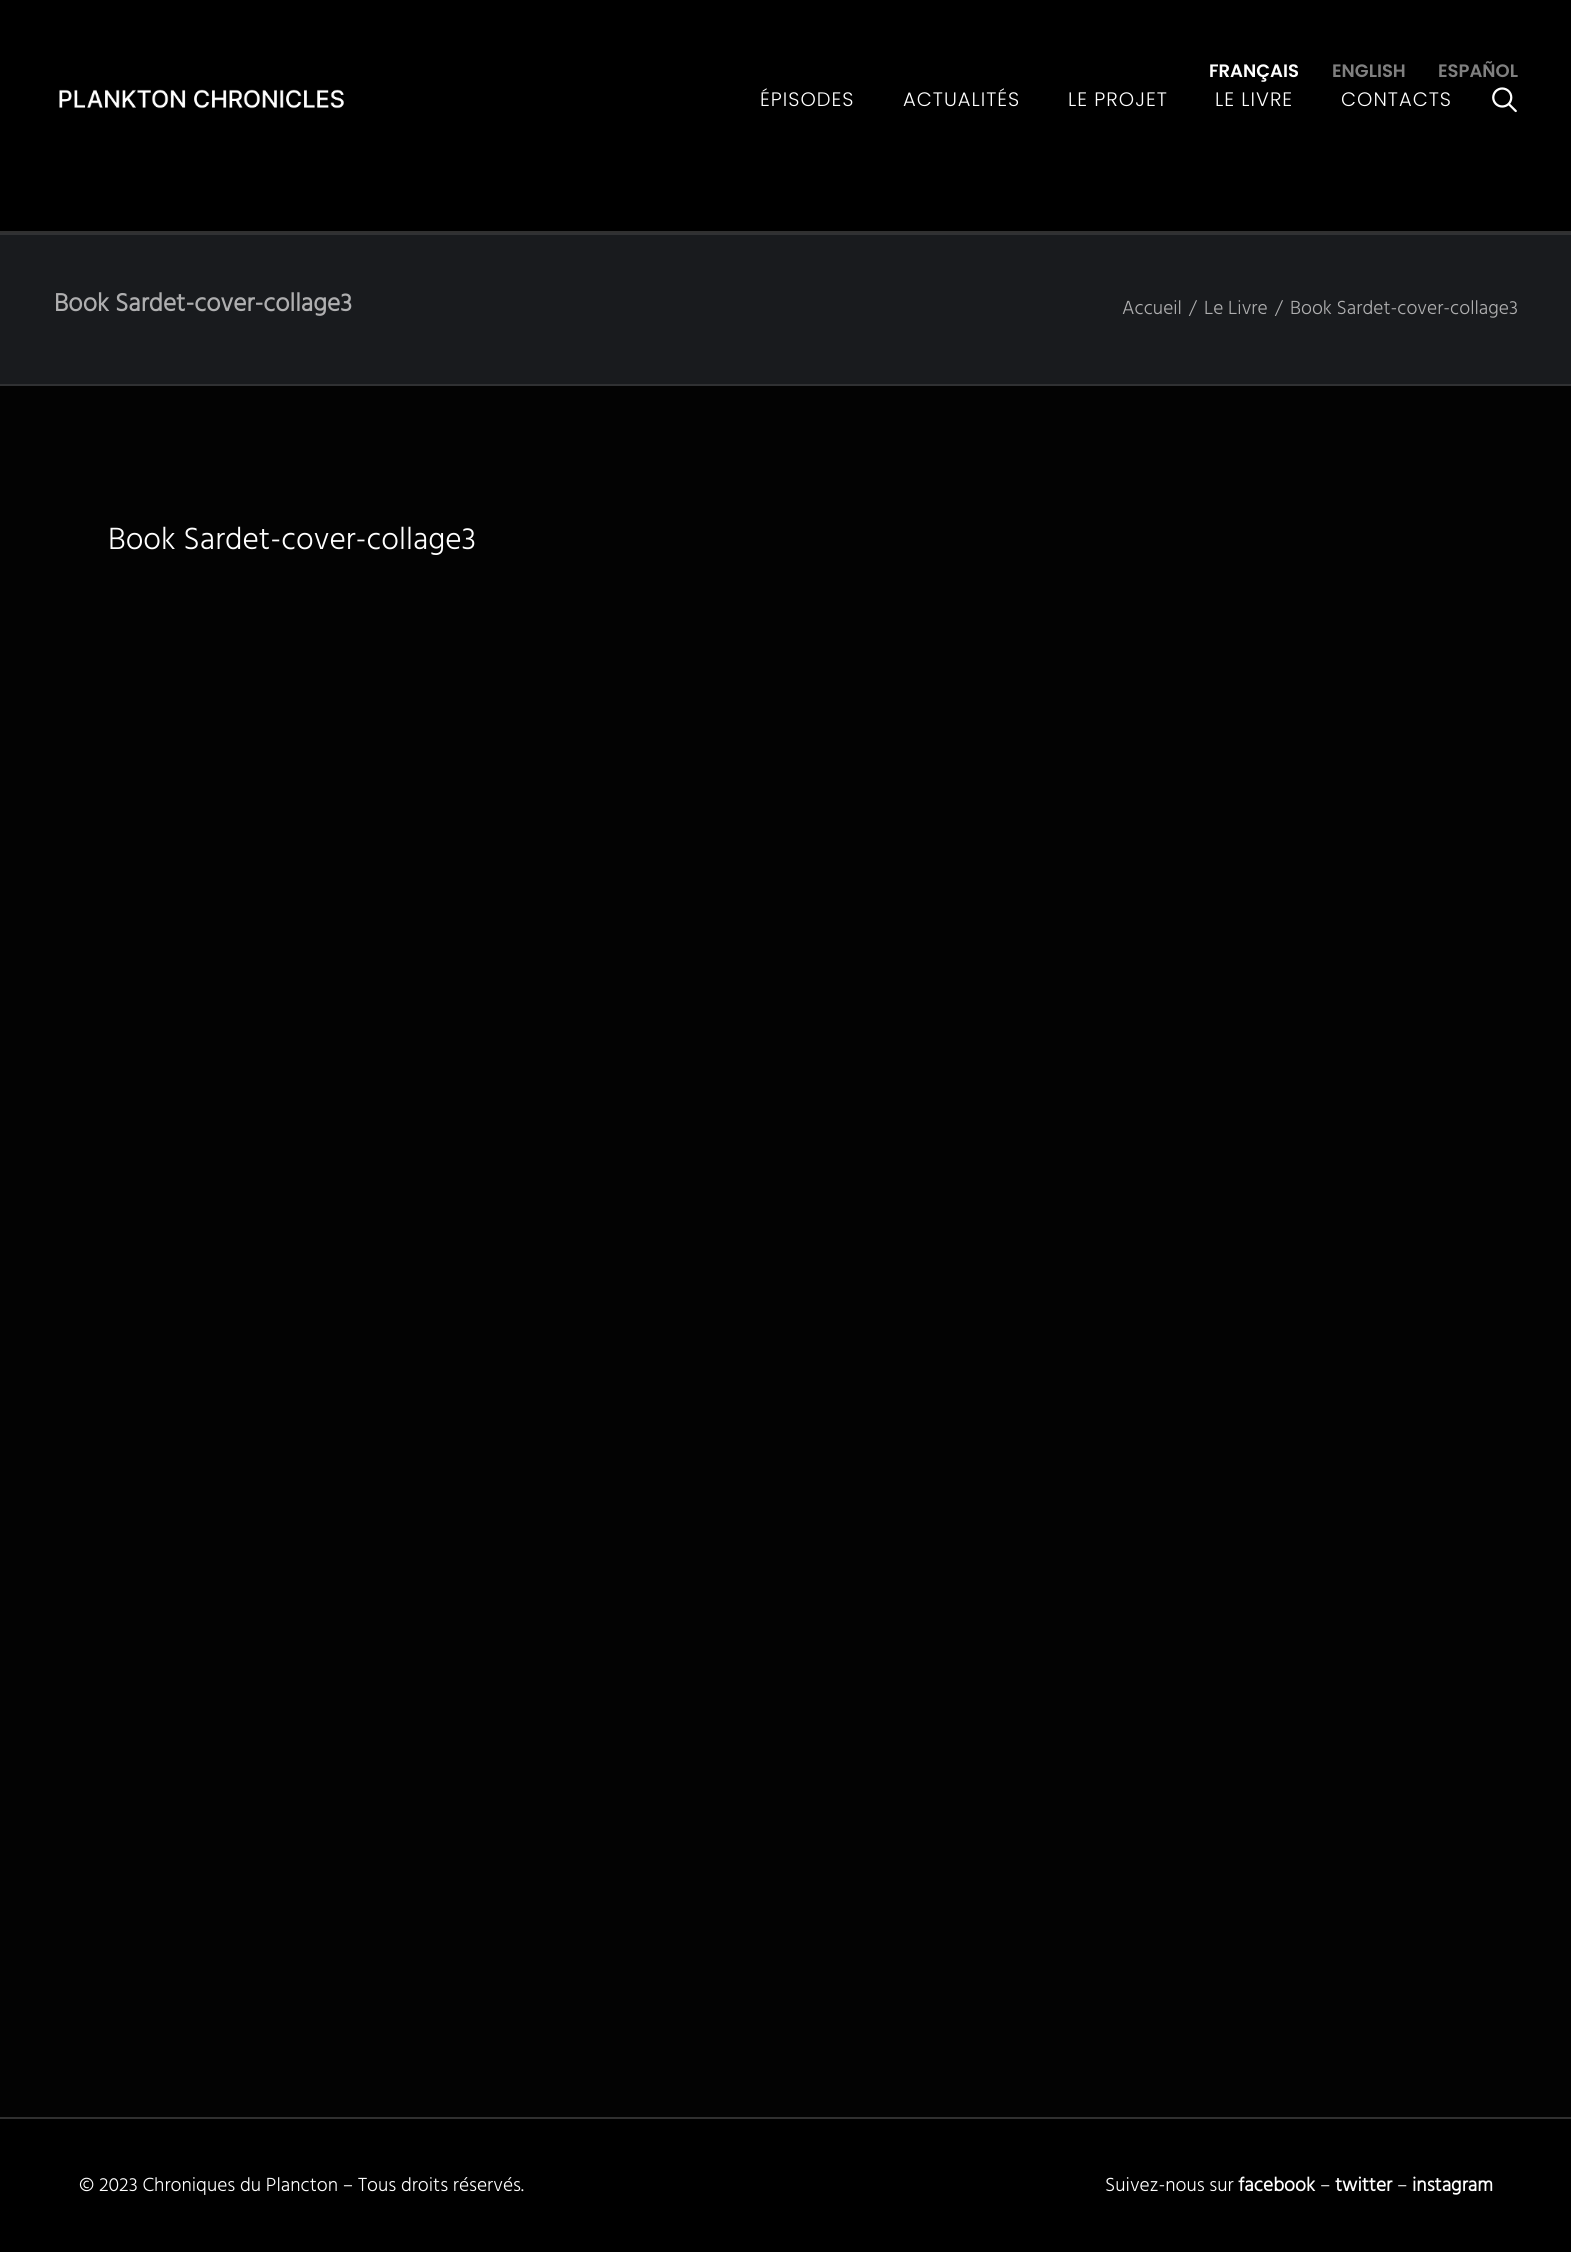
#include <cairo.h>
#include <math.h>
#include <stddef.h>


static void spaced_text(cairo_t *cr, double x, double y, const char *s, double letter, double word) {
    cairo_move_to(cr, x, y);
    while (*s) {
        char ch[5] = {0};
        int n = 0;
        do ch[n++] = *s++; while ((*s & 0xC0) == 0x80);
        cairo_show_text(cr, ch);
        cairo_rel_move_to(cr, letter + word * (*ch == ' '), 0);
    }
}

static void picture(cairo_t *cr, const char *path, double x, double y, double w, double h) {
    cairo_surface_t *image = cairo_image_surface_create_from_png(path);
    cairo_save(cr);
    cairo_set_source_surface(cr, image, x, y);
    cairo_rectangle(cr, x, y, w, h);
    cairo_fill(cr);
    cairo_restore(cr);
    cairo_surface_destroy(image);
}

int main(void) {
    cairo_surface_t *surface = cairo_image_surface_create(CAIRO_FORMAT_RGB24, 1571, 2252);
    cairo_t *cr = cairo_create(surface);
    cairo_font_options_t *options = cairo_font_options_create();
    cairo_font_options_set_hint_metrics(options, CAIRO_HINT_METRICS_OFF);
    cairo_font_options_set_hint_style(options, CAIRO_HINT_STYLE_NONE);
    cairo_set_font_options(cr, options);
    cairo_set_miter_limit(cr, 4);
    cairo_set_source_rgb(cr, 0, 0, 0);
    cairo_paint(cr);
    cairo_set_source_rgb(cr, 0.188, 0.188, 0.188);
    cairo_rectangle(cr, 0, 231, 1571, 2);
    cairo_fill(cr);
    cairo_select_font_face(cr, "Poppins SemiBold", CAIRO_FONT_SLANT_NORMAL, CAIRO_FONT_WEIGHT_NORMAL);
    cairo_set_font_size(cr, 18);
    cairo_set_source_rgb(cr, 1, 1, 1);
    cairo_move_to(cr, 1209, 77);
    cairo_show_text(cr, "FRANÇAIS");
    cairo_set_source_rgb(cr, 0.502, 0.502, 0.502);
    cairo_move_to(cr, 1332, 77);
    cairo_show_text(cr, "ENGLISH");
    cairo_move_to(cr, 1438, 77);
    cairo_show_text(cr, "ESPAÑOL");
    picture(cr, "img1.png", 59, 89, 285, 20);
    cairo_select_font_face(cr, "Poppins Light", CAIRO_FONT_SLANT_NORMAL, CAIRO_FONT_WEIGHT_NORMAL);
    cairo_set_font_size(cr, 19.5);
    cairo_set_source_rgb(cr, 1, 1, 1);
    spaced_text(cr, 760, 106, "ÉPISODES", 1, 0);
    spaced_text(cr, 903, 106, "ACTUALITÉS", 1, 0);
    spaced_text(cr, 1068, 106, "LE PROJET", 1, 0);
    spaced_text(cr, 1215, 106, "LE LIVRE", 1, 0);
    spaced_text(cr, 1341, 106, "CONTACTS", 1, 0);
    picture(cr, "img2.png", 1492, 87, 25, 26);
    cairo_set_source_rgb(cr, 0.098, 0.106, 0.118);
    cairo_rectangle(cr, 0, 235, 1571, 149);
    cairo_fill(cr);
    cairo_set_source_rgb(cr, 0.188, 0.192, 0.2);
    cairo_rectangle(cr, 0, 233, 1571, 2);
    cairo_fill(cr);
    cairo_rectangle(cr, 0, 384, 1571, 2);
    cairo_fill(cr);
    cairo_select_font_face(cr, "Hind", CAIRO_FONT_SLANT_NORMAL, CAIRO_FONT_WEIGHT_BOLD);
    cairo_set_font_size(cr, 25.5);
    cairo_set_source_rgb(cr, 0.686, 0.686, 0.69);
    cairo_move_to(cr, 54, 311);
    cairo_show_text(cr, "Book Sardet-cover-collage3");
    cairo_select_font_face(cr, "Hind Light", CAIRO_FONT_SLANT_NORMAL, CAIRO_FONT_WEIGHT_NORMAL);
    cairo_set_font_size(cr, 19.5);
    cairo_move_to(cr, 1122, 314);
    cairo_show_text(cr, "Accueil");
    cairo_move_to(cr, 1189, 314);
    cairo_show_text(cr, "/");
    cairo_move_to(cr, 1204, 314);
    cairo_show_text(cr, "Le Livre");
    cairo_move_to(cr, 1275, 314);
    cairo_show_text(cr, "/");
    cairo_move_to(cr, 1290, 314);
    cairo_show_text(cr, "Book Sardet-cover-collage3");
    cairo_set_source_rgb(cr, 0.012, 0.012, 0.012);
    cairo_rectangle(cr, 0, 386, 1571, 1731);
    cairo_fill(cr);
    cairo_set_font_size(cr, 31.5);
    cairo_set_source_rgb(cr, 1, 1, 1);
    cairo_move_to(cr, 108, 549);
    cairo_show_text(cr, "Book Sardet-cover-collage3");
    cairo_set_source_rgb(cr, 0.188, 0.188, 0.188);
    cairo_rectangle(cr, 0, 2117, 1571, 2);
    cairo_fill(cr);
    cairo_set_font_size(cr, 19.5);
    cairo_set_source_rgb(cr, 1, 1, 1);
    cairo_move_to(cr, 79, 2191);
    cairo_show_text(cr, "© 2023 Chroniques du Plancton – Tous droits réservés.");
    cairo_move_to(cr, 1105, 2191);
    cairo_show_text(cr, "Suivez-nous sur");
    cairo_select_font_face(cr, "Hind", CAIRO_FONT_SLANT_NORMAL, CAIRO_FONT_WEIGHT_BOLD);
    cairo_move_to(cr, 1238, 2191);
    cairo_show_text(cr, "facebook");
    cairo_select_font_face(cr, "Hind Light", CAIRO_FONT_SLANT_NORMAL, CAIRO_FONT_WEIGHT_NORMAL);
    cairo_move_to(cr, 1320, 2191);
    cairo_show_text(cr, "–");
    cairo_select_font_face(cr, "Hind", CAIRO_FONT_SLANT_NORMAL, CAIRO_FONT_WEIGHT_BOLD);
    cairo_move_to(cr, 1335, 2191);
    cairo_show_text(cr, "twitter");
    cairo_select_font_face(cr, "Hind Light", CAIRO_FONT_SLANT_NORMAL, CAIRO_FONT_WEIGHT_NORMAL);
    cairo_move_to(cr, 1397, 2191);
    cairo_show_text(cr, "–");
    cairo_select_font_face(cr, "Hind", CAIRO_FONT_SLANT_NORMAL, CAIRO_FONT_WEIGHT_BOLD);
    cairo_move_to(cr, 1412, 2191);
    cairo_show_text(cr, "instagram");
    cairo_surface_write_to_png(surface, "page.png");
    cairo_font_options_destroy(options);
    cairo_destroy(cr);
    cairo_surface_destroy(surface);
    return 0;
}
